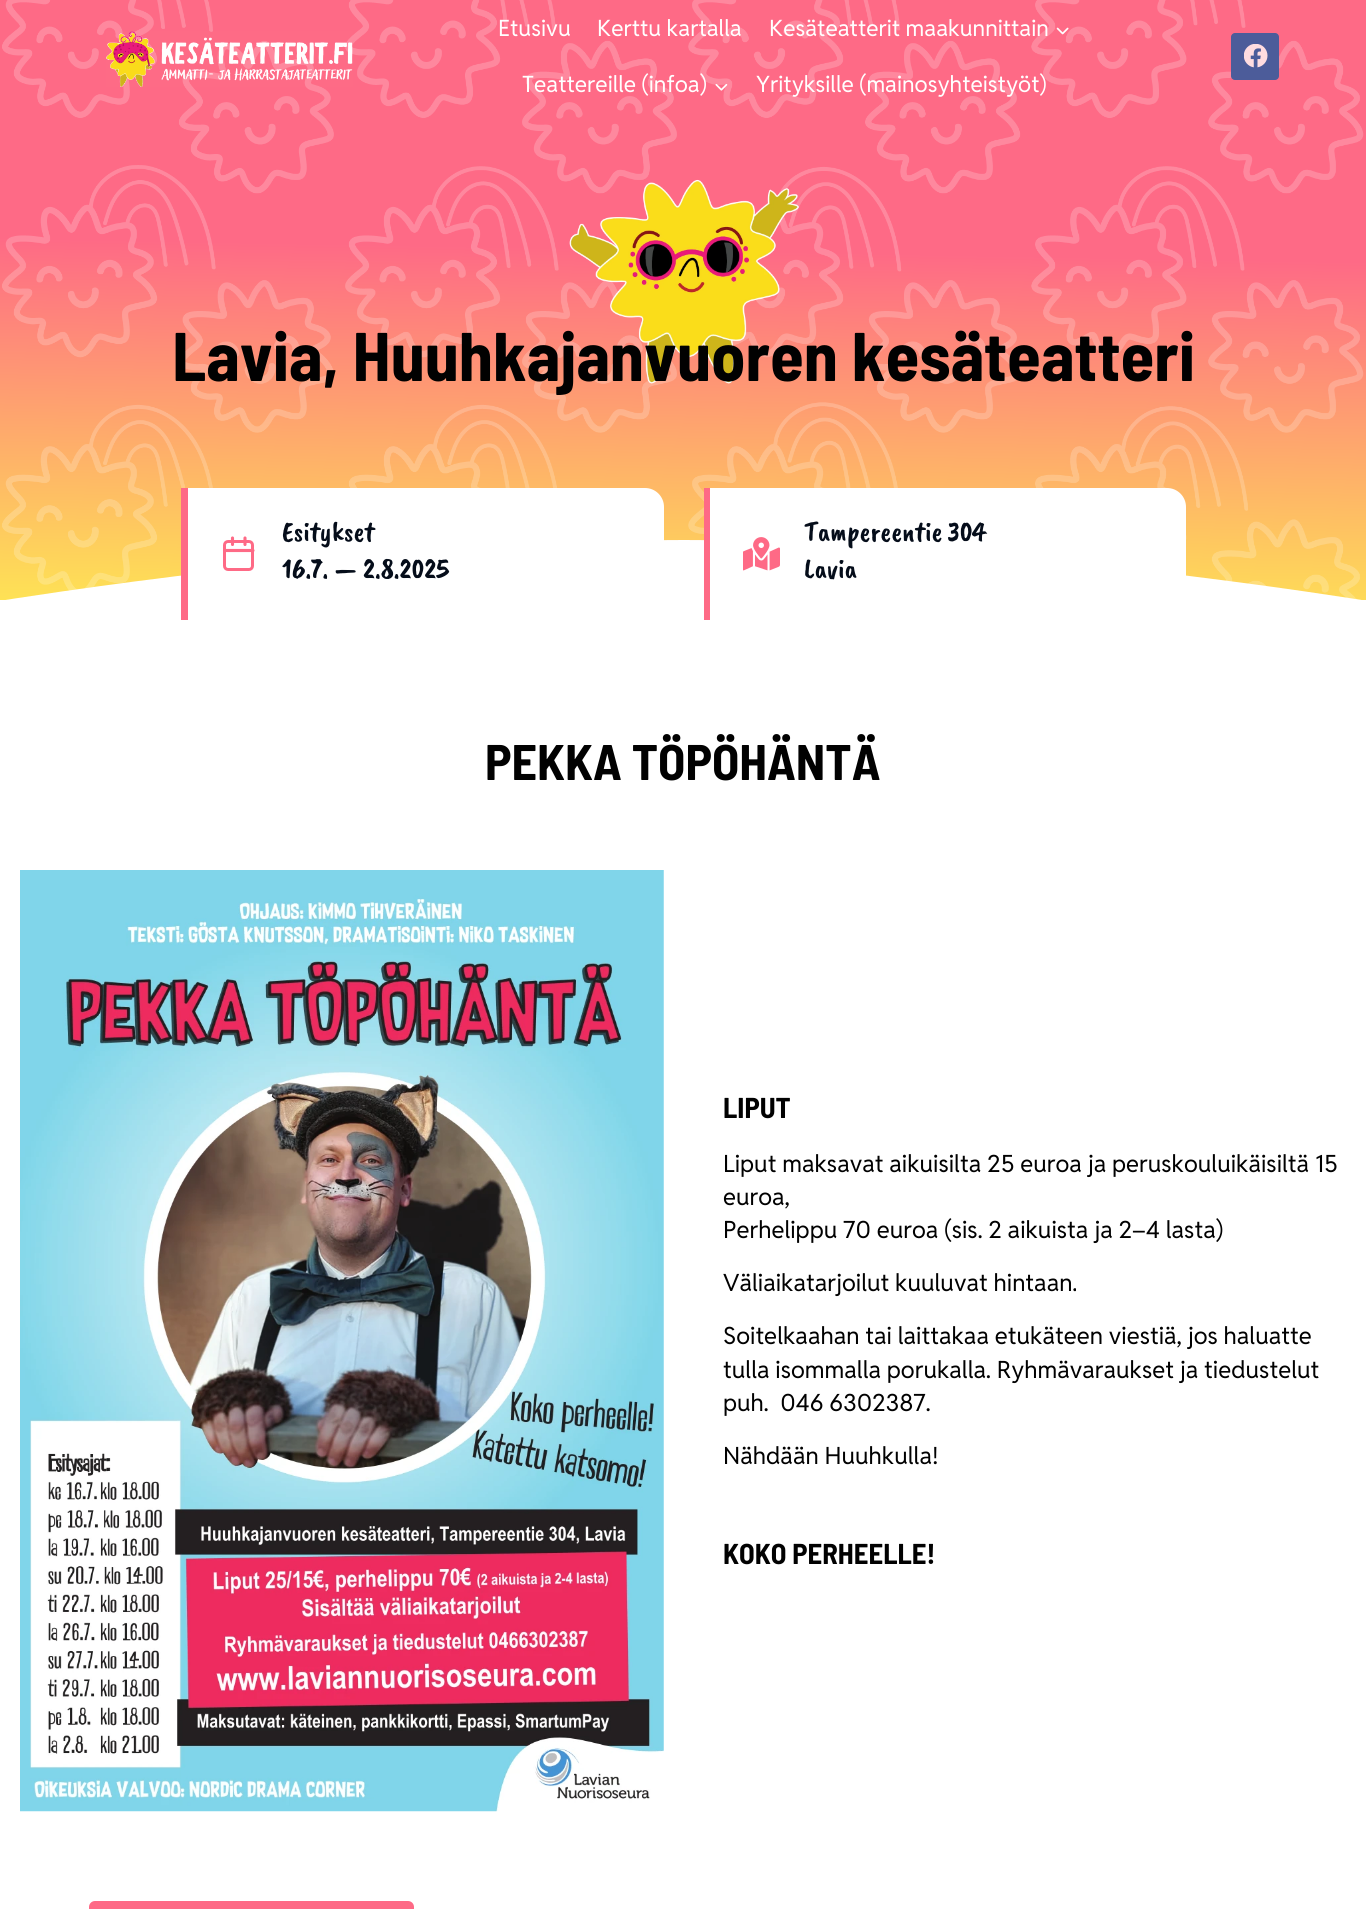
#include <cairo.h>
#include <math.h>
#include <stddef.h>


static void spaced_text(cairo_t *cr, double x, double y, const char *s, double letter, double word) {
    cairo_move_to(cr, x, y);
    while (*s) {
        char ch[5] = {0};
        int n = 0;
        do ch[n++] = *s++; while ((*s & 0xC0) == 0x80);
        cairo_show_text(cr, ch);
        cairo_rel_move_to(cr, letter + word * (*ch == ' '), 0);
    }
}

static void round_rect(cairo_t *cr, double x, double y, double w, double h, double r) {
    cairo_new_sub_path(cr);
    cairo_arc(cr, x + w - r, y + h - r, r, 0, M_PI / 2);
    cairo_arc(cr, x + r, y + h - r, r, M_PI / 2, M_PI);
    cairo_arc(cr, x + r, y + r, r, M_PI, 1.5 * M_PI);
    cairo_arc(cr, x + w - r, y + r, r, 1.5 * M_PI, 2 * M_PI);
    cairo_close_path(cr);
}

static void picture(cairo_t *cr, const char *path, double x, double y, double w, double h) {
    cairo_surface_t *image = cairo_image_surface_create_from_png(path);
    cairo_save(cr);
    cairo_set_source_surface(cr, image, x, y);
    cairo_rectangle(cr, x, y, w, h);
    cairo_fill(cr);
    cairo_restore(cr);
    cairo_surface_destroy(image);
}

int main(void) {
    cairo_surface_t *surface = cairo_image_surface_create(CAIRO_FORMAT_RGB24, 1366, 1909);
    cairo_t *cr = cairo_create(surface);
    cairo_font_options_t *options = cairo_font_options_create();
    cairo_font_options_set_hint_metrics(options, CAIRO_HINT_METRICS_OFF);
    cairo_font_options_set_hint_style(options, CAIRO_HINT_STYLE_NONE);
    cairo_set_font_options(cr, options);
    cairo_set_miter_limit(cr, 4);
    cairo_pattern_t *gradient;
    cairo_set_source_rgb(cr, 1, 1, 1);
    cairo_paint(cr);
    gradient = cairo_pattern_create_linear(689, -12, 678, 612);
    cairo_pattern_add_color_stop_rgba(gradient, 0.42, 0.996, 0.416, 0.525, 1);
    cairo_pattern_add_color_stop_rgba(gradient, 1, 0.996, 0.886, 0.333, 1);
    cairo_set_source(cr, gradient);
    cairo_pattern_destroy(gradient);
    cairo_rectangle(cr, 0, 0, 1366, 600);
    cairo_fill(cr);
    picture(cr, "img5.png", 2, 0, 1362, 600);
    picture(cr, "img1.png", 106, 31, 247, 56);
    cairo_select_font_face(cr, "Reddit Sans", CAIRO_FONT_SLANT_NORMAL, CAIRO_FONT_WEIGHT_NORMAL);
    cairo_set_font_size(cr, 22.5);
    cairo_set_source_rgb(cr, 1, 1, 1);
    cairo_move_to(cr, 498, 36);
    cairo_show_text(cr, "Etusivu");
    cairo_move_to(cr, 597, 36);
    cairo_show_text(cr, "Kerttu kartalla");
    cairo_move_to(cr, 769, 36);
    cairo_show_text(cr, "Kesäteatterit maakunnittain");
    picture(cr, "img2.png", 1056, 27, 13, 8);
    cairo_move_to(cr, 522, 92);
    cairo_show_text(cr, "Teattereille (infoa)");
    picture(cr, "img3.png", 715, 84, 13, 7);
    cairo_move_to(cr, 756, 92);
    cairo_show_text(cr, "Yrityksille (mainosyhteistyöt)");
    cairo_set_source_rgb(cr, 0.298, 0.361, 0.604);
    round_rect(cr, 1231, 33, 48, 47, 4);
    cairo_fill(cr);
    picture(cr, "img4.png", 1244, 44, 24, 24);
    picture(cr, "img6.png", 569, 179, 230, 205);
    cairo_select_font_face(cr, "Barlow Semi Condensed", CAIRO_FONT_SLANT_NORMAL, CAIRO_FONT_WEIGHT_BOLD);
    cairo_set_font_size(cr, 68.75);
    cairo_set_source_rgb(cr, 0.004, 0.004, 0.004);
    cairo_move_to(cr, 172, 381);
    cairo_show_text(cr, "Lavia, Huuhkajanvuoren kesäteatteri");
    cairo_set_source_rgb(cr, 1, 1, 1);
    cairo_new_path(cr);
    cairo_move_to(cr, 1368, 601);
    cairo_curve_to(cr, 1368, 601, 997, 540, 684, 540);
    cairo_curve_to(cr, 370, 540, -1, 601, -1, 601);
    cairo_close_path(cr);
    cairo_fill(cr);
    cairo_set_source_rgb(cr, 0.996, 0.416, 0.525);
    cairo_rectangle(cr, 181, 488, 7, 132);
    cairo_fill(cr);
    cairo_set_source_rgb(cr, 1, 1, 1);
    cairo_new_path(cr);
    cairo_move_to(cr, 188, 488);
    cairo_line_to(cr, 645, 488);
    cairo_curve_to(cr, 655.5, 488, 664, 496.5, 664, 507);
    cairo_line_to(cr, 664, 601);
    cairo_curve_to(cr, 664, 611.5, 655.5, 620, 645, 620);
    cairo_line_to(cr, 188, 620);
    cairo_close_path(cr);
    cairo_fill(cr);
    round_rect(cr, 224.5, 541.5, 28, 28, 3.5);
    cairo_set_source_rgb(cr, 0.996, 0.416, 0.525);
    cairo_set_line_width(cr, 3);
    cairo_stroke(cr);
    cairo_new_path(cr);
    cairo_move_to(cr, 245, 538);
    cairo_line_to(cr, 245, 544.5);
    cairo_move_to(cr, 232.5, 538);
    cairo_line_to(cr, 232.5, 544.5);
    cairo_move_to(cr, 224.5, 550.5);
    cairo_line_to(cr, 253, 550.5);
    cairo_set_line_width(cr, 3.1);
    cairo_set_line_cap(cr, CAIRO_LINE_CAP_ROUND);
    cairo_set_line_join(cr, CAIRO_LINE_JOIN_ROUND);
    cairo_stroke(cr);
    cairo_select_font_face(cr, "Caveat Brush", CAIRO_FONT_SLANT_NORMAL, CAIRO_FONT_WEIGHT_NORMAL);
    cairo_set_font_size(cr, 28.75);
    cairo_set_source_rgb(cr, 0.02, 0.051, 0.102);
    cairo_move_to(cr, 282, 541);
    cairo_show_text(cr, "Esitykset");
    cairo_move_to(cr, 282, 578);
    cairo_show_text(cr, "16.7. — 2.8.2025");
    cairo_set_source_rgb(cr, 0.996, 0.416, 0.525);
    cairo_rectangle(cr, 704, 488, 6, 132);
    cairo_fill(cr);
    cairo_set_source_rgb(cr, 1, 1, 1);
    cairo_new_path(cr);
    cairo_move_to(cr, 710, 488);
    cairo_line_to(cr, 1167, 488);
    cairo_curve_to(cr, 1177.5, 488, 1186, 496.5, 1186, 507);
    cairo_line_to(cr, 1186, 601);
    cairo_curve_to(cr, 1186, 611.5, 1177.5, 620, 1167, 620);
    cairo_line_to(cr, 710, 620);
    cairo_close_path(cr);
    cairo_fill(cr);
    picture(cr, "img7.png", 743, 537, 37, 34);
    cairo_set_source_rgb(cr, 0.02, 0.051, 0.102);
    spaced_text(cr, 804, 541, "Tampereentie 304", 0, -1);
    cairo_move_to(cr, 804, 578);
    cairo_show_text(cr, "Lavia");
    cairo_select_font_face(cr, "Barlow Semi Condensed", CAIRO_FONT_SLANT_NORMAL, CAIRO_FONT_WEIGHT_BOLD);
    cairo_set_font_size(cr, 50);
    cairo_set_source_rgb(cr, 0.004, 0.004, 0.004);
    cairo_move_to(cr, 485, 780);
    cairo_show_text(cr, "PEKKA TÖPÖHÄNTÄ");
    picture(cr, "img8.png", 20, 870, 644, 942);
    cairo_set_font_size(cr, 28.75);
    cairo_move_to(cr, 723, 1118);
    cairo_show_text(cr, "LIPUT");
    cairo_select_font_face(cr, "Reddit Sans", CAIRO_FONT_SLANT_NORMAL, CAIRO_FONT_WEIGHT_NORMAL);
    cairo_set_font_size(cr, 23.75);
    cairo_move_to(cr, 723, 1172);
    cairo_show_text(cr, "Liput maksavat aikuisilta 25 euroa ja peruskouluikäisiltä 15");
    cairo_move_to(cr, 723, 1205);
    cairo_show_text(cr, "euroa,");
    cairo_move_to(cr, 723, 1238);
    cairo_show_text(cr, "Perhelippu 70 euroa (sis. 2 aikuista ja 2–4 lasta)");
    cairo_move_to(cr, 723, 1291);
    cairo_show_text(cr, "Väliaikatarjoilut kuuluvat hintaan.");
    cairo_move_to(cr, 723, 1344);
    cairo_show_text(cr, "Soitelkaahan tai laittakaa etukäteen viestiä, jos haluatte");
    cairo_move_to(cr, 723, 1378);
    cairo_show_text(cr, "tulla isommalla porukalla. Ryhmävaraukset ja tiedustelut");
    cairo_move_to(cr, 723, 1411);
    cairo_show_text(cr, "puh.  046 6302387.");
    cairo_move_to(cr, 723, 1464);
    cairo_show_text(cr, "Nähdään Huuhkulla!");
    cairo_select_font_face(cr, "Barlow Semi Condensed", CAIRO_FONT_SLANT_NORMAL, CAIRO_FONT_WEIGHT_BOLD);
    cairo_set_font_size(cr, 28.75);
    cairo_move_to(cr, 723, 1564);
    cairo_show_text(cr, "KOKO PERHEELLE!");
    cairo_set_source_rgb(cr, 0.996, 0.416, 0.525);
    round_rect(cr, 89, 1901, 325, 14, 6);
    cairo_fill(cr);
    cairo_surface_write_to_png(surface, "page.png");
    cairo_font_options_destroy(options);
    cairo_destroy(cr);
    cairo_surface_destroy(surface);
    return 0;
}
